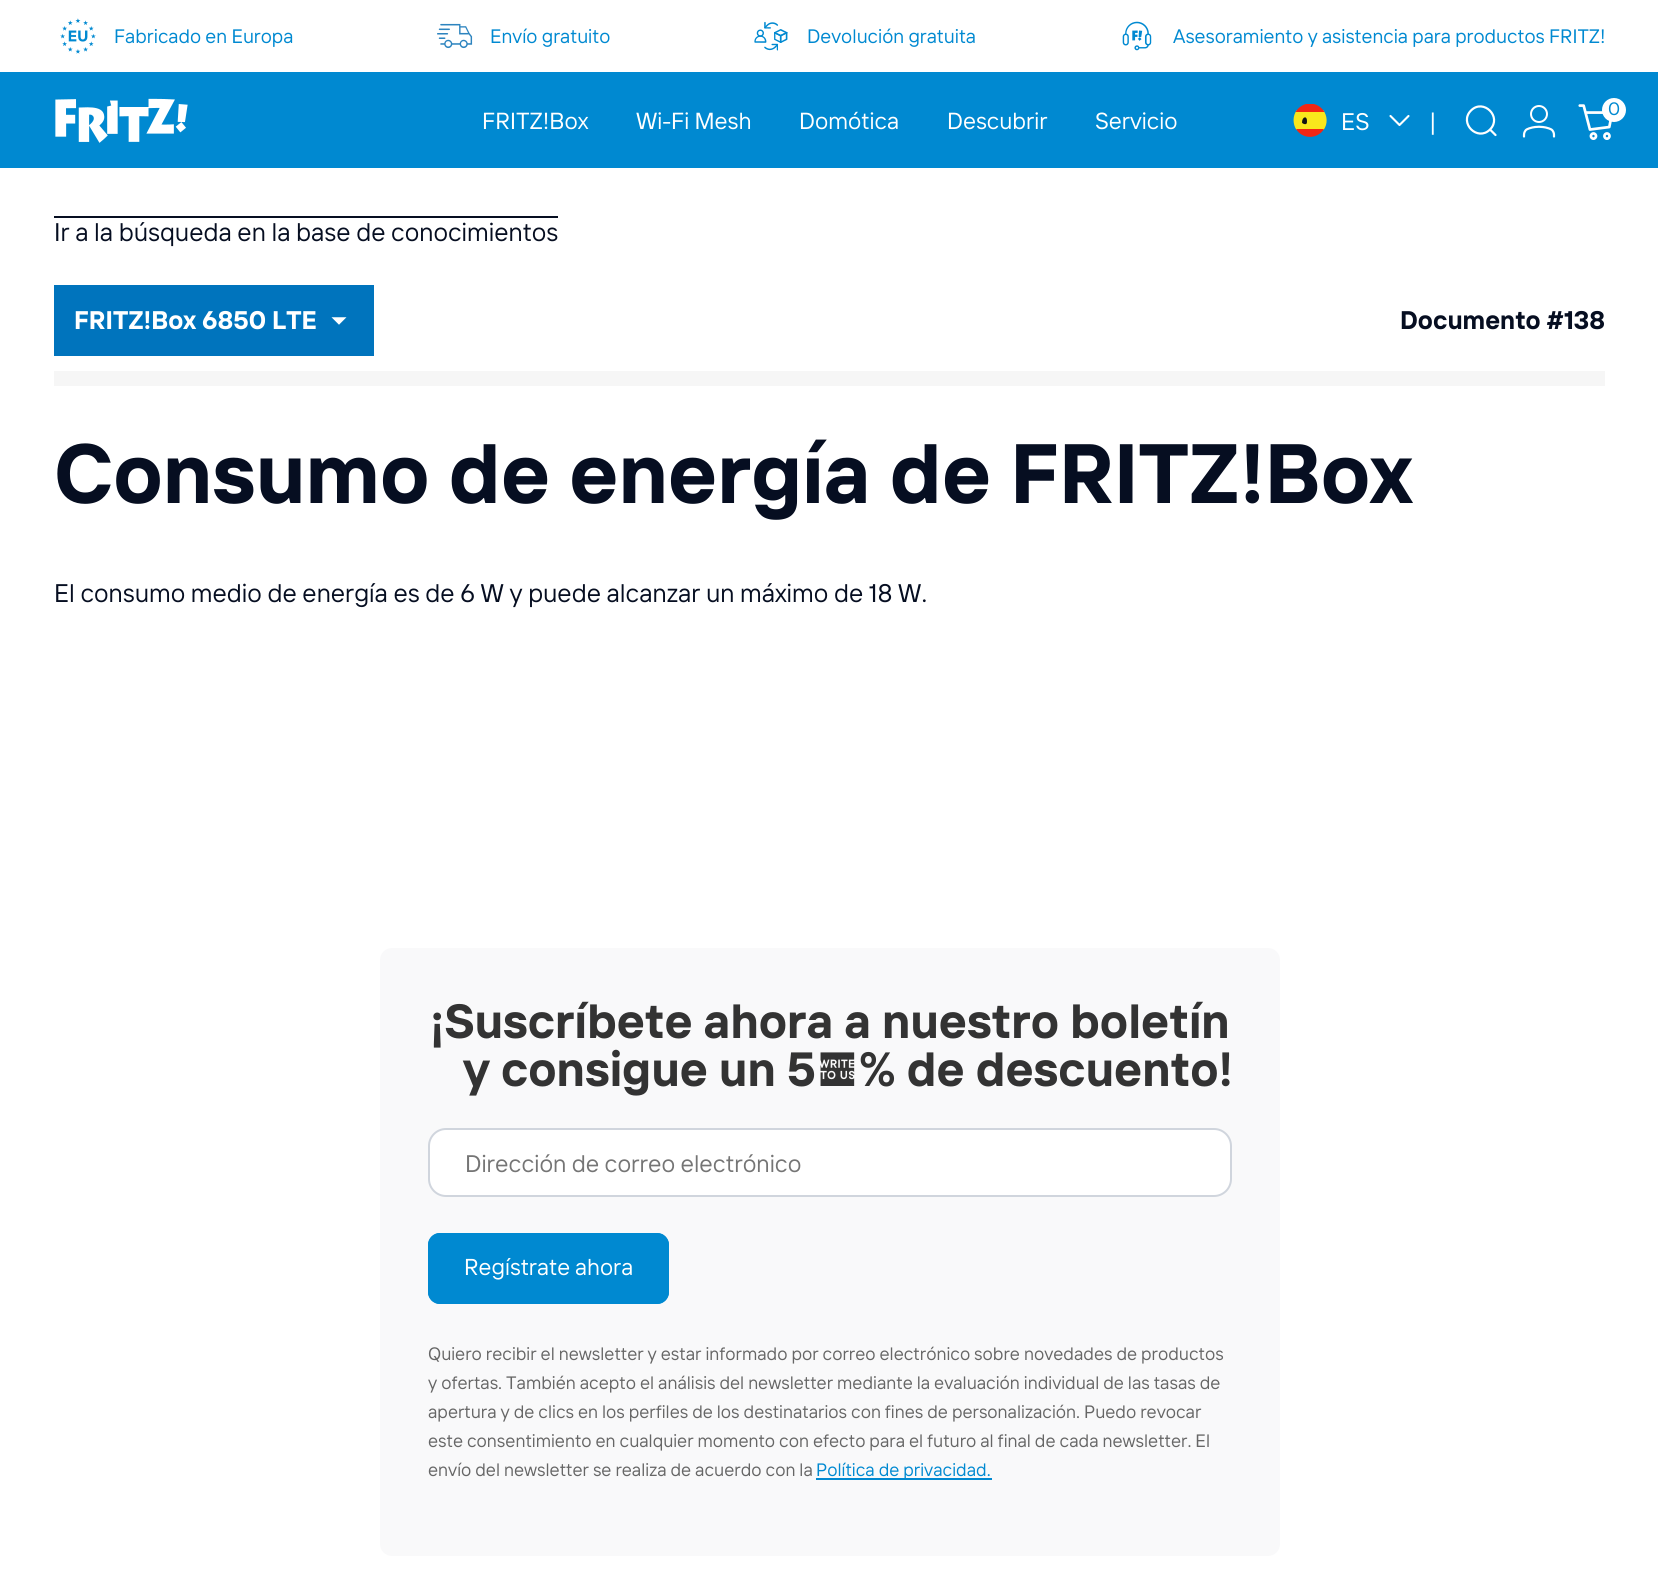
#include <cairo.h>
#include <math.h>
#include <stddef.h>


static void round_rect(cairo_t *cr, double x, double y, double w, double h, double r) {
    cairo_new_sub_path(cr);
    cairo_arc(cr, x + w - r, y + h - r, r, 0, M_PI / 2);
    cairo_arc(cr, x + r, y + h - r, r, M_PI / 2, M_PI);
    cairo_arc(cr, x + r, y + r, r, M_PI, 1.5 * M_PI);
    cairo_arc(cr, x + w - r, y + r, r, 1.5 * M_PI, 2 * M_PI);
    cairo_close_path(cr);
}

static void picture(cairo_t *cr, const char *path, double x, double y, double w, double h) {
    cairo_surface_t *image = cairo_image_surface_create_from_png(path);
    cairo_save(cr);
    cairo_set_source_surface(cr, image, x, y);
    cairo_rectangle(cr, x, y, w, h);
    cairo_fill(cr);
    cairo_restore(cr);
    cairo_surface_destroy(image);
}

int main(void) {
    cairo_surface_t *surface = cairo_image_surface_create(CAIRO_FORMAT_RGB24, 1658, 1573);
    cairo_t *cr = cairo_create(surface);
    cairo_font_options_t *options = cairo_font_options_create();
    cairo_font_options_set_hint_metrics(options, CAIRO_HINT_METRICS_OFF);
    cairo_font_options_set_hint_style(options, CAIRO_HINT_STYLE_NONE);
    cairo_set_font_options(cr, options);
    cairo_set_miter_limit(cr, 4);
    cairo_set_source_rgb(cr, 1, 1, 1);
    cairo_paint(cr);
    picture(cr, "img1.png", 60, 18, 36, 36);
    cairo_select_font_face(cr, "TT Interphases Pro", CAIRO_FONT_SLANT_NORMAL, CAIRO_FONT_WEIGHT_NORMAL);
    cairo_set_font_size(cr, 19.5);
    cairo_set_source_rgb(cr, 0, 0.537, 0.82);
    cairo_move_to(cr, 114, 43);
    cairo_show_text(cr, "Fabricado en Europa");
    picture(cr, "img2.png", 437, 23, 36, 26);
    cairo_move_to(cr, 490, 43);
    cairo_show_text(cr, "Envío gratuito");
    picture(cr, "img3.png", 754, 21, 34, 30);
    cairo_move_to(cr, 807, 43);
    cairo_show_text(cr, "Devolución gratuita");
    picture(cr, "img4.png", 1122, 21, 30, 30);
    cairo_move_to(cr, 1173, 43);
    cairo_show_text(cr, "Asesoramiento y asistencia para productos FRITZ!");
    cairo_rectangle(cr, 0, 72, 1658, 96);
    cairo_fill(cr);
    picture(cr, "img5.png", 55, 98, 133, 45);
    cairo_set_font_size(cr, 23.25);
    cairo_set_source_rgb(cr, 1, 1, 1);
    cairo_move_to(cr, 482, 129);
    cairo_show_text(cr, "FRITZ!Box");
    cairo_move_to(cr, 636, 129);
    cairo_show_text(cr, "Wi-Fi Mesh");
    cairo_move_to(cr, 799, 129);
    cairo_show_text(cr, "Domótica");
    cairo_move_to(cr, 947, 129);
    cairo_show_text(cr, "Descubrir");
    cairo_move_to(cr, 1095, 129);
    cairo_show_text(cr, "Servicio");
    cairo_new_path(cr);
    cairo_move_to(cr, 1495.5, 135);
    cairo_line_to(cr, 1490, 129.5);
    cairo_move_to(cr, 1490, 129.5);
    cairo_curve_to(cr, 1502.5, 117, 1483.5, 98, 1471, 110.5);
    cairo_curve_to(cr, 1458.5, 123, 1477.5, 142, 1490, 129.5);
    cairo_close_path(cr);
    cairo_set_line_width(cr, 2.2);
    cairo_set_line_cap(cr, CAIRO_LINE_CAP_ROUND);
    cairo_stroke(cr);
    picture(cr, "img6.png", 1522, 105, 34, 33);
    picture(cr, "img7.png", 1578, 104, 34, 36);
    cairo_arc(cr, 1614, 110, 12, 0, 2 * M_PI);
    cairo_fill(cr);
    cairo_set_font_size(cr, 18);
    cairo_set_source_rgb(cr, 0, 0.537, 0.82);
    cairo_move_to(cr, 1608, 115);
    cairo_show_text(cr, "0");
    cairo_set_source_rgb(cr, 0.973, 0.906, 0.11);
    cairo_new_path(cr);
    cairo_move_to(cr, 1323, 110);
    cairo_line_to(cr, 1297, 110);
    cairo_curve_to(cr, 1292.5, 115.5, 1292.5, 124, 1296.5, 130);
    cairo_line_to(cr, 1323.5, 130);
    cairo_curve_to(cr, 1328, 124, 1327.5, 115.5, 1323, 110);
    cairo_close_path(cr);
    cairo_fill(cr);
    cairo_set_source_rgb(cr, 0.953, 0.149, 0.078);
    cairo_new_path(cr);
    cairo_move_to(cr, 1324, 129);
    cairo_line_to(cr, 1296, 129);
    cairo_curve_to(cr, 1302.5, 139.5, 1317.5, 139.5, 1324, 129);
    cairo_close_path(cr);
    cairo_fill(cr);
    cairo_save(cr);
    cairo_rectangle(cr, 1293, 104, 34, 33);
    cairo_clip(cr);
    cairo_new_path(cr);
    cairo_move_to(cr, 1310, 103.5);
    cairo_curve_to(cr, 1316, 103.5, 1321.5, 107, 1324.5, 112);
    cairo_line_to(cr, 1295.5, 112);
    cairo_curve_to(cr, 1298.5, 107, 1304, 103.5, 1310, 103.5);
    cairo_close_path(cr);
    cairo_fill(cr);
    cairo_restore(cr);
    cairo_set_source_rgb(cr, 0.075, 0.078, 0.075);
    cairo_new_path(cr);
    cairo_move_to(cr, 1302, 122.5);
    cairo_curve_to(cr, 1302, 123.5, 1307, 126, 1307, 122);
    cairo_curve_to(cr, 1307.5, 115, 1302, 116.5, 1302, 122.5);
    cairo_close_path(cr);
    cairo_fill(cr);
    cairo_set_font_size(cr, 24);
    cairo_set_source_rgb(cr, 1, 1, 1);
    cairo_move_to(cr, 1341, 130);
    cairo_show_text(cr, "ES");
    cairo_new_path(cr);
    cairo_move_to(cr, 1390.5, 116);
    cairo_line_to(cr, 1399.5, 125);
    cairo_line_to(cr, 1408.5, 116);
    cairo_set_line_width(cr, 2.1);
    cairo_set_line_join(cr, CAIRO_LINE_JOIN_ROUND);
    cairo_stroke(cr);
    cairo_move_to(cr, 1429, 130);
    cairo_show_text(cr, "|");
    cairo_set_font_size(cr, 25.5);
    cairo_set_source_rgb(cr, 0.027, 0.055, 0.129);
    cairo_move_to(cr, 54, 241);
    cairo_show_text(cr, "Ir a la búsqueda en la base de conocimientos");
    cairo_rectangle(cr, 54, 216, 504, 2);
    cairo_fill(cr);
    cairo_set_source_rgb(cr, 0.961, 0.961, 0.961);
    cairo_rectangle(cr, 54, 371, 1551, 15);
    cairo_fill(cr);
    cairo_set_source_rgb(cr, 0, 0.455, 0.741);
    cairo_rectangle(cr, 54, 285, 320, 71);
    cairo_fill(cr);
    cairo_select_font_face(cr, "TT Interphases Pro", CAIRO_FONT_SLANT_NORMAL, CAIRO_FONT_WEIGHT_BOLD);
    cairo_set_source_rgb(cr, 1, 1, 1);
    cairo_move_to(cr, 74, 329);
    cairo_show_text(cr, "FRITZ!Box 6850 LTE");
    picture(cr, "img8.png", 331, 317, 16, 8);
    cairo_set_source_rgb(cr, 0.027, 0.055, 0.129);
    cairo_move_to(cr, 1400, 329);
    cairo_show_text(cr, "Documento #138");
    cairo_set_font_size(cr, 84);
    cairo_move_to(cr, 54, 503);
    cairo_show_text(cr, "Consumo de energía de FRITZ!Box");
    cairo_select_font_face(cr, "TT Interphases Pro", CAIRO_FONT_SLANT_NORMAL, CAIRO_FONT_WEIGHT_NORMAL);
    cairo_set_font_size(cr, 25.5);
    cairo_move_to(cr, 54, 602);
    cairo_show_text(cr, "El consumo medio de energía es de 6 W y puede alcanzar un máximo de 18 W.");
    cairo_set_source_rgb(cr, 0.973, 0.976, 0.98);
    round_rect(cr, 380, 948, 900, 608, 12);
    cairo_fill(cr);
    cairo_select_font_face(cr, "TT Interphases Pro", CAIRO_FONT_SLANT_NORMAL, CAIRO_FONT_WEIGHT_BOLD);
    cairo_set_font_size(cr, 48);
    cairo_set_source_rgb(cr, 0.2, 0.2, 0.2);
    cairo_move_to(cr, 430, 1038);
    cairo_show_text(cr, "¡Suscríbete ahora a nuestro boletín");
    cairo_move_to(cr, 463, 1086);
    cairo_show_text(cr, "y consigue un 5 % de descuento!");
    cairo_set_source_rgb(cr, 1, 1, 1);
    round_rect(cr, 429, 1129, 802, 67, 17);
    cairo_fill_preserve(cr);
    cairo_set_source_rgb(cr, 0.816, 0.835, 0.867);
    cairo_set_line_width(cr, 2);
    cairo_set_line_cap(cr, CAIRO_LINE_CAP_BUTT);
    cairo_set_line_join(cr, CAIRO_LINE_JOIN_MITER);
    cairo_stroke(cr);
    cairo_select_font_face(cr, "TT Interphases Pro", CAIRO_FONT_SLANT_NORMAL, CAIRO_FONT_WEIGHT_NORMAL);
    cairo_set_font_size(cr, 24);
    cairo_set_source_rgb(cr, 0.459, 0.459, 0.459);
    cairo_move_to(cr, 465, 1172);
    cairo_show_text(cr, "Dirección de correo electrónico");
    cairo_set_source_rgb(cr, 0, 0.537, 0.82);
    round_rect(cr, 428, 1233, 241, 71, 12);
    cairo_fill(cr);
    round_rect(cr, 429, 1234, 239, 69, 11);
    cairo_stroke(cr);
    cairo_set_font_size(cr, 23);
    cairo_set_source_rgb(cr, 1, 1, 1);
    cairo_move_to(cr, 464, 1275);
    cairo_show_text(cr, "Regístrate ahora");
    cairo_set_font_size(cr, 18);
    cairo_set_source_rgb(cr, 0.4, 0.4, 0.4);
    cairo_move_to(cr, 428, 1360);
    cairo_show_text(cr, "Quiero recibir el newsletter y estar informado por correo electrónico sobre novedades de productos");
    cairo_move_to(cr, 428, 1389);
    cairo_show_text(cr, "y ofertas. También acepto el análisis del newsletter mediante la evaluación individual de las tasas de");
    cairo_move_to(cr, 428, 1418);
    cairo_show_text(cr, "apertura y de clics en los perfiles de los destinatarios con fines de personalización. Puedo revocar");
    cairo_move_to(cr, 428, 1447);
    cairo_show_text(cr, "este consentimiento en cualquier momento con efecto para el futuro al final de cada newsletter. El");
    cairo_move_to(cr, 428, 1476);
    cairo_show_text(cr, "envío del newsletter se realiza de acuerdo con la");
    cairo_set_source_rgb(cr, 0, 0.537, 0.82);
    cairo_rectangle(cr, 816, 1478, 176, 2);
    cairo_fill(cr);
    cairo_move_to(cr, 816, 1476);
    cairo_show_text(cr, "Política de privacidad.");
    cairo_surface_write_to_png(surface, "page.png");
    cairo_font_options_destroy(options);
    cairo_destroy(cr);
    cairo_surface_destroy(surface);
    return 0;
}
